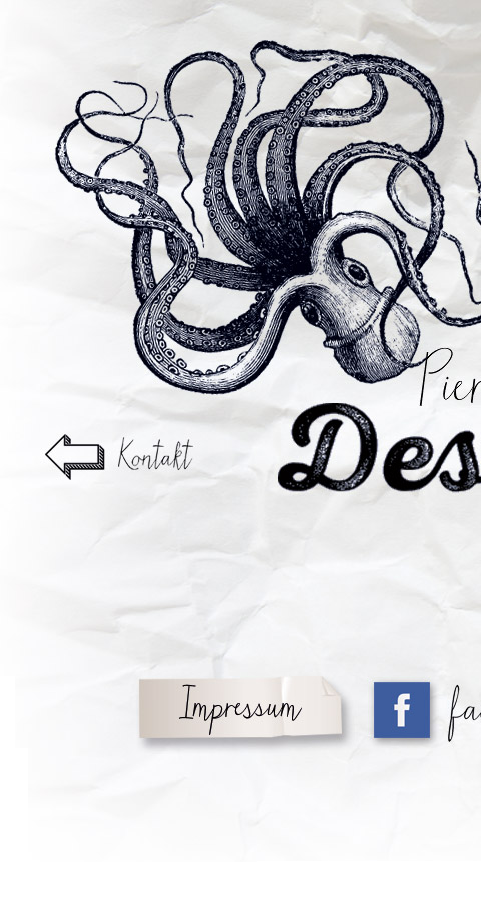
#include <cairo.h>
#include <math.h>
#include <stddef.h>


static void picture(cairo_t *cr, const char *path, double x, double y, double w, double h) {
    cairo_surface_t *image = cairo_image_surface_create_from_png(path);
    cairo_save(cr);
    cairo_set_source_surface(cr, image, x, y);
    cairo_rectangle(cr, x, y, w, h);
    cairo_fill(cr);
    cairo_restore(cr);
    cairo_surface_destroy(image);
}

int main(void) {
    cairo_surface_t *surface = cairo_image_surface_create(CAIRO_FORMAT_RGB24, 481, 907);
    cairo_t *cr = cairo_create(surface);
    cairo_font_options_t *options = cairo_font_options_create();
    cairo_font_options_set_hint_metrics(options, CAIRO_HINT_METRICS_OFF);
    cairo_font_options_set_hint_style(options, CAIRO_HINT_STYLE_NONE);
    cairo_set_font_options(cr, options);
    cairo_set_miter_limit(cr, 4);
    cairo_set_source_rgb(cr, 1, 1, 1);
    cairo_paint(cr);
    picture(cr, "img1.png", 0, 0, 257, 676);
    picture(cr, "img2.png", 257, 0, 224, 676);
    picture(cr, "img3.png", 15, 676, 344, 72);
    picture(cr, "img4.png", 359, 676, 122, 72);
    picture(cr, "img5.png", 28, 748, 229, 114);
    picture(cr, "img6.png", 257, 748, 224, 113);
    cairo_surface_write_to_png(surface, "page.png");
    cairo_font_options_destroy(options);
    cairo_destroy(cr);
    cairo_surface_destroy(surface);
    return 0;
}
